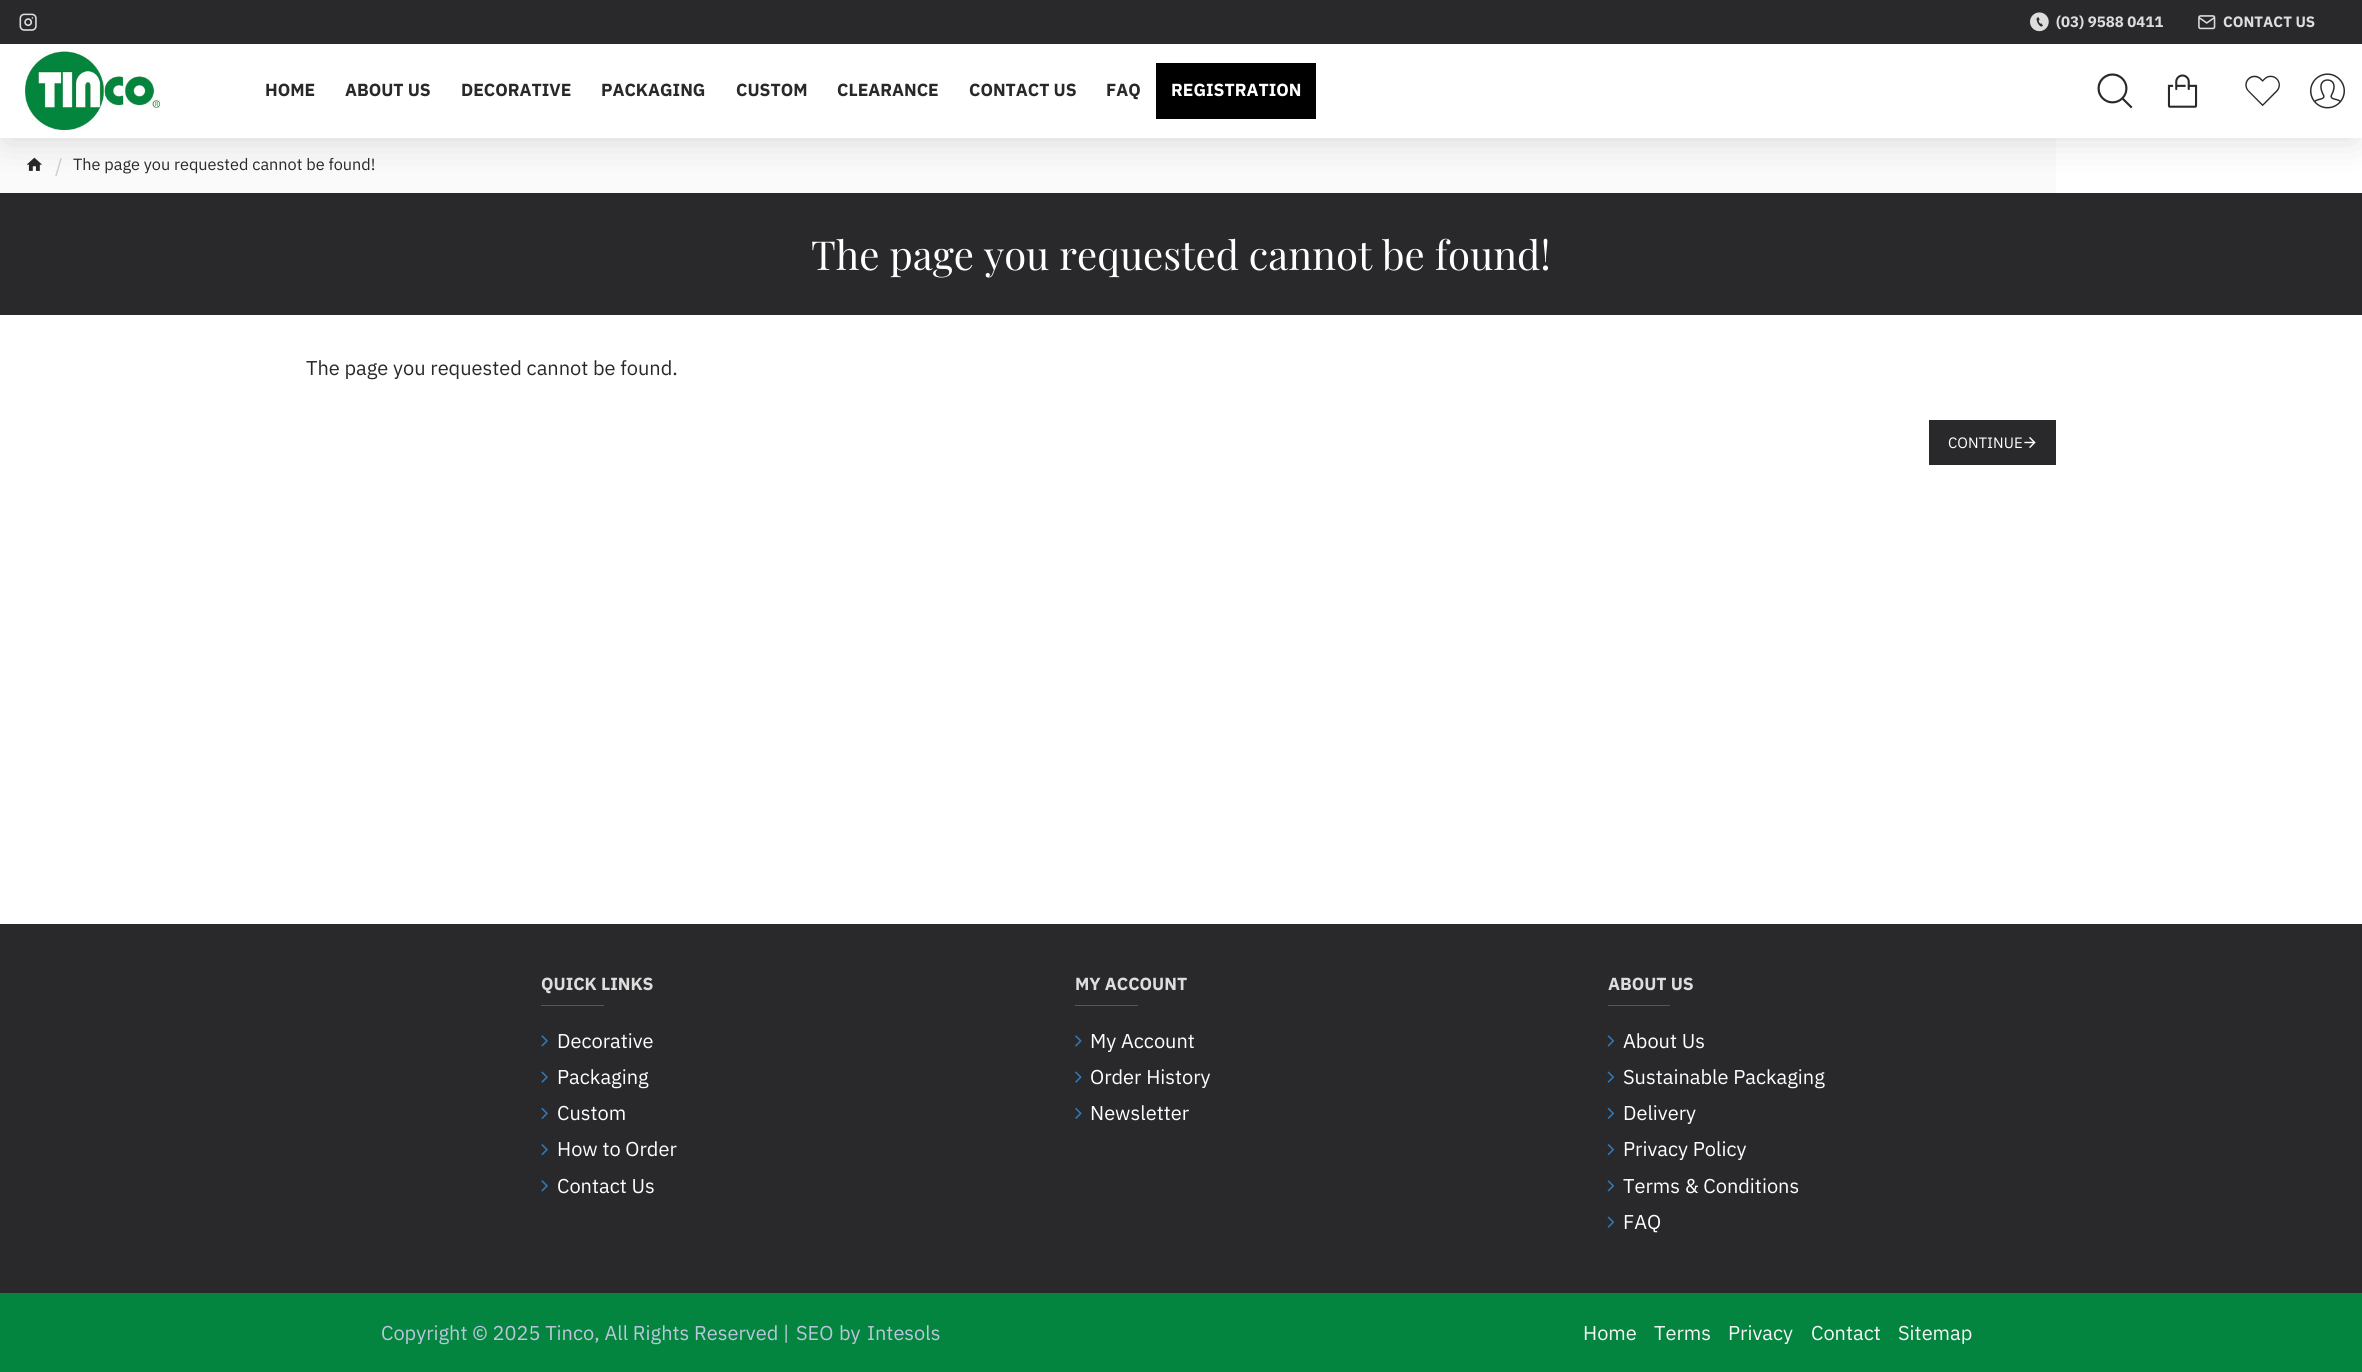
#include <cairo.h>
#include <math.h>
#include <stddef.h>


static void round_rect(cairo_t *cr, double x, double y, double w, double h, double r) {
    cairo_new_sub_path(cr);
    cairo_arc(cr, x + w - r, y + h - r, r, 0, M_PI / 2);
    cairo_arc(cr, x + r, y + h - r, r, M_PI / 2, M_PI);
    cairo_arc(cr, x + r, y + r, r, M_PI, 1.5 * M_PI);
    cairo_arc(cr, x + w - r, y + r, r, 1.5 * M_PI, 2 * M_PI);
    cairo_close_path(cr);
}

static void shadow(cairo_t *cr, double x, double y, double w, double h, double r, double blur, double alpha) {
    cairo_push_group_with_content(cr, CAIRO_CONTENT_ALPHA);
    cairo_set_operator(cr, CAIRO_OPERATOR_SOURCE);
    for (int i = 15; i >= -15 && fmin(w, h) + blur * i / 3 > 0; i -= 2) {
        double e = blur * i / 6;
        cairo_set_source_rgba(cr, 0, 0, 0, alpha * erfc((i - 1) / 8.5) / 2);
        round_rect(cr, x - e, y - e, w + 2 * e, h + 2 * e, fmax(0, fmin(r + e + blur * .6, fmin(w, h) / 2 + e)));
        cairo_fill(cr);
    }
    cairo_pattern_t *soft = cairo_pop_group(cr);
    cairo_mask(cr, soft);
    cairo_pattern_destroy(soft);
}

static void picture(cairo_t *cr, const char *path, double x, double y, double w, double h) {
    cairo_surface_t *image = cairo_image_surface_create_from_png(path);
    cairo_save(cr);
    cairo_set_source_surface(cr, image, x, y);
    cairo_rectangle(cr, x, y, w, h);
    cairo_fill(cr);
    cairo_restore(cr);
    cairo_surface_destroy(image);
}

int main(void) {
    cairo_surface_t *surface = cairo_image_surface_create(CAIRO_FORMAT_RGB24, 2362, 1372);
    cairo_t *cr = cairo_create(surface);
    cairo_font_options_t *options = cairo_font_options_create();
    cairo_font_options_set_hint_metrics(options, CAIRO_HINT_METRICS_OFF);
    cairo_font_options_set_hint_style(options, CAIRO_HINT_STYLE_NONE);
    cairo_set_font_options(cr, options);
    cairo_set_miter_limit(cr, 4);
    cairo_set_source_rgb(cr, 1, 1, 1);
    cairo_paint(cr);
    cairo_set_source_rgb(cr, 0.98, 0.98, 0.98);
    cairo_rectangle(cr, 0, 138, 2056, 55);
    cairo_fill(cr);
    picture(cr, "img9.png", 26, 157, 16, 14);
    cairo_set_source_rgb(cr, 0.161, 0.161, 0.169);
    cairo_rectangle(cr, 0, 193, 2362, 122);
    cairo_fill(cr);
    cairo_set_source_rgb(cr, 0, 0, 0);
    shadow(cr, 6, 13, 2350, 125, 0, 19, 0.15);
    cairo_set_source_rgb(cr, 1, 1, 1);
    cairo_rectangle(cr, 0, 44, 2362, 94);
    cairo_fill(cr);
    cairo_set_source_rgb(cr, 0.161, 0.161, 0.169);
    cairo_rectangle(cr, 0, 0, 2362, 44);
    cairo_fill(cr);
    picture(cr, "img1.png", 19, 13, 18, 18);
    picture(cr, "img2.png", 2030, 12, 19, 20);
    cairo_select_font_face(cr, "IBM Plex Sans", CAIRO_FONT_SLANT_NORMAL, CAIRO_FONT_WEIGHT_BOLD);
    cairo_set_font_size(cr, 15);
    cairo_set_source_rgb(cr, 0.867, 0.867, 0.867);
    cairo_move_to(cr, 2056, 27);
    cairo_show_text(cr, "(03) 9588 0411");
    picture(cr, "img3.png", 2198, 15, 18, 15);
    cairo_move_to(cr, 2223, 27);
    cairo_show_text(cr, "CONTACT US");
    picture(cr, "img4.png", 25, 51, 135, 79);
    cairo_set_font_size(cr, 17.5);
    cairo_set_source_rgb(cr, 0.161, 0.161, 0.169);
    cairo_move_to(cr, 265, 96);
    cairo_show_text(cr, "HOME");
    cairo_move_to(cr, 345, 96);
    cairo_show_text(cr, "ABOUT US");
    cairo_move_to(cr, 461, 96);
    cairo_show_text(cr, "DECORATIVE");
    cairo_move_to(cr, 601, 96);
    cairo_show_text(cr, "PACKAGING");
    cairo_move_to(cr, 736, 96);
    cairo_show_text(cr, "CUSTOM");
    cairo_move_to(cr, 837, 96);
    cairo_show_text(cr, "CLEARANCE");
    cairo_move_to(cr, 969, 96);
    cairo_show_text(cr, "CONTACT US");
    cairo_move_to(cr, 1106, 96);
    cairo_show_text(cr, "FAQ");
    cairo_set_source_rgb(cr, 0, 0, 0);
    cairo_rectangle(cr, 1156, 63, 160, 56);
    cairo_fill(cr);
    cairo_set_source_rgb(cr, 1, 1, 1);
    cairo_move_to(cr, 1171, 96);
    cairo_show_text(cr, "REGISTRATION");
    picture(cr, "img5.png", 2097, 73, 36, 36);
    picture(cr, "img6.png", 2167, 74, 31, 34);
    picture(cr, "img7.png", 2245, 75, 35, 32);
    picture(cr, "img8.png", 2310, 73, 35, 36);
    cairo_select_font_face(cr, "IBM Plex Sans", CAIRO_FONT_SLANT_NORMAL, CAIRO_FONT_WEIGHT_NORMAL);
    cairo_set_font_size(cr, 20);
    cairo_set_source_rgb(cr, 0.8, 0.8, 0.8);
    cairo_move_to(cr, 55, 173);
    cairo_show_text(cr, "/");
    cairo_set_font_size(cr, 16.25);
    cairo_set_source_rgb(cr, 0.161, 0.161, 0.169);
    cairo_move_to(cr, 73, 170);
    cairo_show_text(cr, "The page you requested cannot be found!");
    cairo_select_font_face(cr, "Playfair Display", CAIRO_FONT_SLANT_NORMAL, CAIRO_FONT_WEIGHT_NORMAL);
    cairo_set_font_size(cr, 40);
    cairo_set_source_rgb(cr, 1, 1, 1);
    cairo_move_to(cr, 811, 270);
    cairo_show_text(cr, "The page you requested cannot be found!");
    cairo_select_font_face(cr, "IBM Plex Sans", CAIRO_FONT_SLANT_NORMAL, CAIRO_FONT_WEIGHT_NORMAL);
    cairo_set_font_size(cr, 20);
    cairo_set_source_rgb(cr, 0.161, 0.161, 0.169);
    cairo_move_to(cr, 306, 375);
    cairo_show_text(cr, "The page you requested cannot be found.");
    cairo_rectangle(cr, 1929, 420, 127, 45);
    cairo_fill(cr);
    cairo_set_font_size(cr, 15);
    cairo_set_source_rgb(cr, 1, 1, 1);
    cairo_move_to(cr, 1948, 448);
    cairo_show_text(cr, "CONTINUE");
    picture(cr, "img10.png", 2024, 437, 12, 11);
    cairo_set_source_rgb(cr, 0.161, 0.161, 0.169);
    cairo_rectangle(cr, 0, 924, 2362, 369);
    cairo_fill(cr);
    cairo_select_font_face(cr, "IBM Plex Sans", CAIRO_FONT_SLANT_NORMAL, CAIRO_FONT_WEIGHT_BOLD);
    cairo_set_font_size(cr, 17.5);
    cairo_set_source_rgb(cr, 0.867, 0.867, 0.867);
    cairo_move_to(cr, 541, 990);
    cairo_show_text(cr, "QUICK LINKS");
    cairo_set_source_rgb(cr, 0.012, 0.522, 0.247);
    cairo_rectangle(cr, 541, 1005, 63, 1);
    cairo_fill(cr);
    picture(cr, "img11.png", 541, 1035, 7, 12);
    cairo_select_font_face(cr, "IBM Plex Sans", CAIRO_FONT_SLANT_NORMAL, CAIRO_FONT_WEIGHT_NORMAL);
    cairo_set_font_size(cr, 20);
    cairo_set_source_rgb(cr, 1, 1, 1);
    cairo_move_to(cr, 557, 1048);
    cairo_show_text(cr, "Decorative");
    picture(cr, "img12.png", 541, 1071, 7, 12);
    cairo_move_to(cr, 557, 1084);
    cairo_show_text(cr, "Packaging");
    picture(cr, "img13.png", 541, 1107, 7, 12);
    cairo_move_to(cr, 557, 1120);
    cairo_show_text(cr, "Custom");
    picture(cr, "img14.png", 541, 1144, 7, 12);
    cairo_move_to(cr, 557, 1156);
    cairo_show_text(cr, "How to Order");
    picture(cr, "img11.png", 541, 1180, 7, 12);
    cairo_move_to(cr, 557, 1193);
    cairo_show_text(cr, "Contact Us");
    cairo_select_font_face(cr, "IBM Plex Sans", CAIRO_FONT_SLANT_NORMAL, CAIRO_FONT_WEIGHT_BOLD);
    cairo_set_font_size(cr, 17.5);
    cairo_set_source_rgb(cr, 0.867, 0.867, 0.867);
    cairo_move_to(cr, 1075, 990);
    cairo_show_text(cr, "MY ACCOUNT");
    cairo_set_source_rgb(cr, 0.012, 0.522, 0.247);
    cairo_rectangle(cr, 1075, 1005, 63, 1);
    cairo_fill(cr);
    picture(cr, "img15.png", 1075, 1035, 7, 12);
    cairo_select_font_face(cr, "IBM Plex Sans", CAIRO_FONT_SLANT_NORMAL, CAIRO_FONT_WEIGHT_NORMAL);
    cairo_set_font_size(cr, 20);
    cairo_set_source_rgb(cr, 1, 1, 1);
    cairo_move_to(cr, 1090, 1048);
    cairo_show_text(cr, "My Account");
    picture(cr, "img16.png", 1075, 1071, 7, 12);
    cairo_move_to(cr, 1090, 1084);
    cairo_show_text(cr, "Order History");
    picture(cr, "img17.png", 1075, 1107, 7, 12);
    cairo_move_to(cr, 1090, 1120);
    cairo_show_text(cr, "Newsletter");
    cairo_select_font_face(cr, "IBM Plex Sans", CAIRO_FONT_SLANT_NORMAL, CAIRO_FONT_WEIGHT_BOLD);
    cairo_set_font_size(cr, 17.5);
    cairo_set_source_rgb(cr, 0.867, 0.867, 0.867);
    cairo_move_to(cr, 1608, 990);
    cairo_show_text(cr, "ABOUT US");
    cairo_set_source_rgb(cr, 0.012, 0.522, 0.247);
    cairo_rectangle(cr, 1608, 1005, 62, 1);
    cairo_fill(cr);
    picture(cr, "img18.png", 1607, 1035, 8, 12);
    cairo_select_font_face(cr, "IBM Plex Sans", CAIRO_FONT_SLANT_NORMAL, CAIRO_FONT_WEIGHT_NORMAL);
    cairo_set_font_size(cr, 20);
    cairo_set_source_rgb(cr, 1, 1, 1);
    cairo_move_to(cr, 1623, 1048);
    cairo_show_text(cr, "About Us");
    picture(cr, "img19.png", 1607, 1071, 8, 12);
    cairo_move_to(cr, 1623, 1084);
    cairo_show_text(cr, "Sustainable Packaging");
    picture(cr, "img20.png", 1607, 1107, 8, 12);
    cairo_move_to(cr, 1623, 1120);
    cairo_show_text(cr, "Delivery");
    picture(cr, "img21.png", 1607, 1144, 8, 12);
    cairo_move_to(cr, 1623, 1156);
    cairo_show_text(cr, "Privacy Policy");
    picture(cr, "img18.png", 1607, 1180, 8, 12);
    cairo_move_to(cr, 1623, 1193);
    cairo_show_text(cr, "Terms & Conditions");
    picture(cr, "img19.png", 1607, 1216, 8, 12);
    cairo_move_to(cr, 1623, 1229);
    cairo_show_text(cr, "FAQ");
    cairo_set_source_rgb(cr, 0.012, 0.522, 0.247);
    cairo_rectangle(cr, 0, 1293, 2362, 79);
    cairo_fill(cr);
    cairo_set_source_rgb(cr, 0.733, 0.776, 0.867);
    cairo_move_to(cr, 381, 1340);
    cairo_show_text(cr, "Copyright © 2025 Tinco, All Rights Reserved |");
    cairo_move_to(cr, 796, 1340);
    cairo_show_text(cr, "SEO");
    cairo_move_to(cr, 839, 1340);
    cairo_show_text(cr, "by");
    cairo_move_to(cr, 867, 1340);
    cairo_show_text(cr, "Intesols");
    cairo_set_source_rgb(cr, 0.961, 0.961, 0.961);
    cairo_move_to(cr, 1583, 1340);
    cairo_show_text(cr, "Home");
    cairo_move_to(cr, 1654, 1340);
    cairo_show_text(cr, "Terms");
    cairo_move_to(cr, 1728, 1340);
    cairo_show_text(cr, "Privacy");
    cairo_move_to(cr, 1811, 1340);
    cairo_show_text(cr, "Contact");
    cairo_move_to(cr, 1898, 1340);
    cairo_show_text(cr, "Sitemap");
    cairo_surface_write_to_png(surface, "page.png");
    cairo_font_options_destroy(options);
    cairo_destroy(cr);
    cairo_surface_destroy(surface);
    return 0;
}
